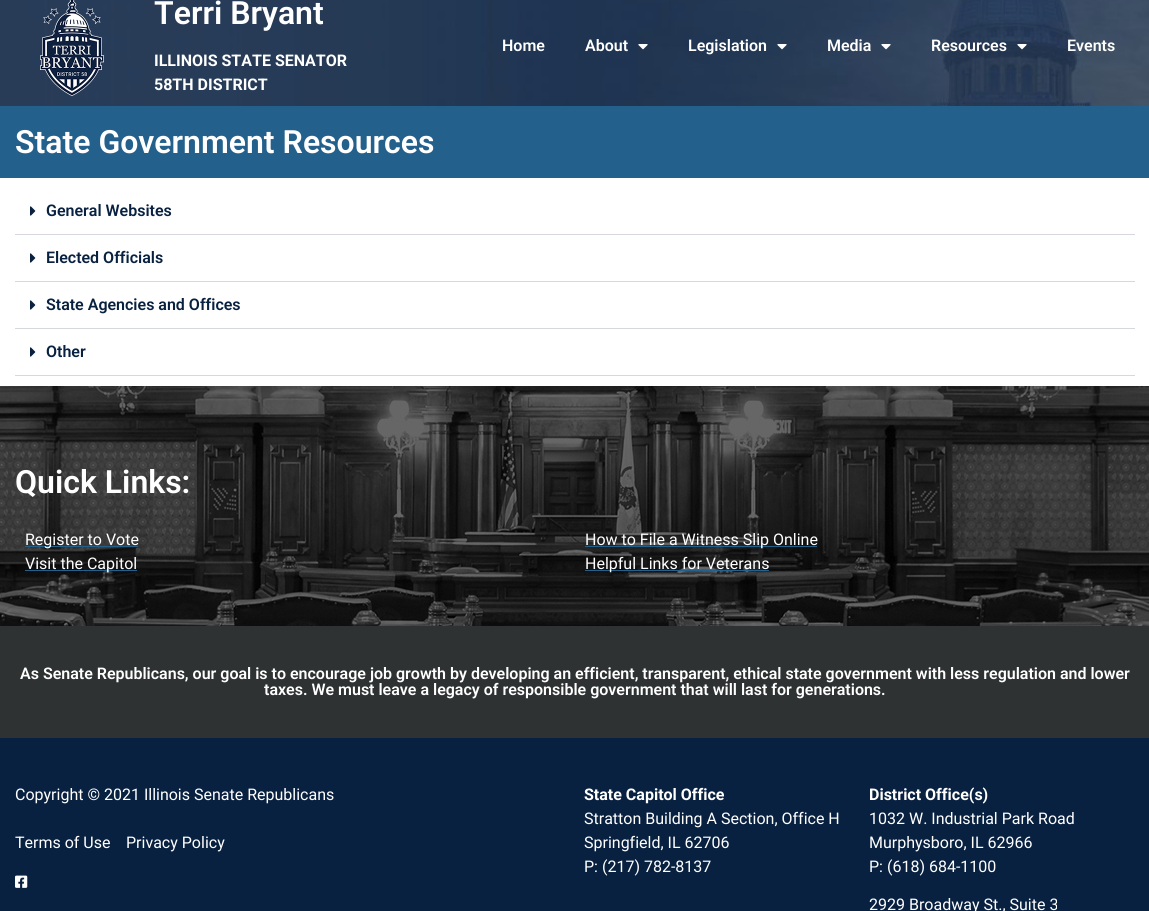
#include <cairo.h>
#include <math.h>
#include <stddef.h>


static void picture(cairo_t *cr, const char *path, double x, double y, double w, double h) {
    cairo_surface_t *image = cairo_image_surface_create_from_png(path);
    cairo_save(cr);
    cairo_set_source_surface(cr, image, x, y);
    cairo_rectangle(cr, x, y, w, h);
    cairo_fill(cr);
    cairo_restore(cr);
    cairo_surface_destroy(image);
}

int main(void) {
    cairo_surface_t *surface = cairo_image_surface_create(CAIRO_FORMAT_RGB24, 1149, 911);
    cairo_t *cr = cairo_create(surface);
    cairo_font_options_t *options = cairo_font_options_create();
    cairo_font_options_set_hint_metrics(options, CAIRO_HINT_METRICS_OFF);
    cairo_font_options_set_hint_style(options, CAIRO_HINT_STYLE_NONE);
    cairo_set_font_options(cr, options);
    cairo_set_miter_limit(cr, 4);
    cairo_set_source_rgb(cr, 1, 1, 1);
    cairo_paint(cr);
    picture(cr, "img1.png", 0, 0, 1149, 106);
    picture(cr, "img2.png", 40, 0, 64, 96);
    cairo_select_font_face(cr, "Roboto SemiBold", CAIRO_FONT_SLANT_NORMAL, CAIRO_FONT_WEIGHT_NORMAL);
    cairo_set_font_size(cr, 32);
    cairo_set_source_rgb(cr, 1, 1, 1);
    cairo_move_to(cr, 154, 24);
    cairo_show_text(cr, "Terri Bryant");
    cairo_select_font_face(cr, "Roboto", CAIRO_FONT_SLANT_NORMAL, CAIRO_FONT_WEIGHT_BOLD);
    cairo_set_font_size(cr, 16);
    cairo_move_to(cr, 154, 66);
    cairo_show_text(cr, "ILLINOIS STATE SENATOR");
    cairo_move_to(cr, 154, 90);
    cairo_show_text(cr, "58TH DISTRICT");
    cairo_select_font_face(cr, "Roboto SemiBold", CAIRO_FONT_SLANT_NORMAL, CAIRO_FONT_WEIGHT_NORMAL);
    cairo_move_to(cr, 502, 51);
    cairo_show_text(cr, "Home");
    cairo_move_to(cr, 585, 51);
    cairo_show_text(cr, "About");
    picture(cr, "img3.png", 638, 44, 10, 6);
    cairo_move_to(cr, 688, 51);
    cairo_show_text(cr, "Legislation");
    picture(cr, "img4.png", 777, 44, 10, 6);
    cairo_move_to(cr, 827, 51);
    cairo_show_text(cr, "Media");
    picture(cr, "img5.png", 881, 44, 10, 6);
    cairo_move_to(cr, 931, 51);
    cairo_show_text(cr, "Resources");
    picture(cr, "img6.png", 1017, 44, 10, 6);
    cairo_move_to(cr, 1067, 51);
    cairo_show_text(cr, "Events");
    cairo_set_source_rgb(cr, 0.137, 0.376, 0.549);
    cairo_rectangle(cr, 0, 106, 1149, 72);
    cairo_fill(cr);
    cairo_set_font_size(cr, 32);
    cairo_set_source_rgb(cr, 1, 1, 1);
    cairo_move_to(cr, 15, 153);
    cairo_show_text(cr, "State Government Resources");
    cairo_set_source_rgb(cr, 0.835, 0.847, 0.863);
    cairo_rectangle(cr, 15, 234, 1120, 1);
    cairo_fill(cr);
    picture(cr, "img7.png", 30, 206, 6, 10);
    cairo_set_font_size(cr, 16);
    cairo_set_source_rgb(cr, 0.039, 0.129, 0.251);
    cairo_move_to(cr, 46, 216);
    cairo_show_text(cr, "General Websites");
    cairo_set_source_rgb(cr, 0.835, 0.847, 0.863);
    cairo_rectangle(cr, 15, 281, 1120, 1);
    cairo_fill(cr);
    picture(cr, "img7.png", 30, 253, 6, 10);
    cairo_set_source_rgb(cr, 0.039, 0.129, 0.251);
    cairo_move_to(cr, 46, 263);
    cairo_show_text(cr, "Elected Officials");
    cairo_set_source_rgb(cr, 0.835, 0.847, 0.863);
    cairo_rectangle(cr, 15, 328, 1120, 1);
    cairo_fill(cr);
    picture(cr, "img7.png", 30, 300, 6, 10);
    cairo_set_source_rgb(cr, 0.039, 0.129, 0.251);
    cairo_move_to(cr, 46, 310);
    cairo_show_text(cr, "State Agencies and Offices");
    cairo_set_source_rgb(cr, 0.835, 0.847, 0.863);
    cairo_rectangle(cr, 15, 375, 1120, 1);
    cairo_fill(cr);
    picture(cr, "img7.png", 30, 347, 6, 10);
    cairo_set_source_rgb(cr, 0.039, 0.129, 0.251);
    cairo_move_to(cr, 46, 357);
    cairo_show_text(cr, "Other");
    picture(cr, "img8.png", 0, 386, 1149, 240);
    cairo_set_font_size(cr, 32);
    cairo_set_source_rgb(cr, 1, 1, 1);
    cairo_move_to(cr, 15, 493);
    cairo_show_text(cr, "Quick Links:");
    cairo_set_source_rgb(cr, 0.137, 0.376, 0.549);
    cairo_rectangle(cr, 25, 546, 113, 1);
    cairo_fill(cr);
    cairo_select_font_face(cr, "Roboto", CAIRO_FONT_SLANT_NORMAL, CAIRO_FONT_WEIGHT_NORMAL);
    cairo_set_font_size(cr, 16);
    cairo_set_source_rgb(cr, 1, 1, 1);
    cairo_move_to(cr, 25, 545);
    cairo_show_text(cr, "Register to Vote");
    cairo_set_source_rgb(cr, 0.137, 0.376, 0.549);
    cairo_rectangle(cr, 25, 570, 112, 1);
    cairo_fill(cr);
    cairo_set_source_rgb(cr, 1, 1, 1);
    cairo_move_to(cr, 25, 569);
    cairo_show_text(cr, "Visit the Capitol");
    cairo_set_source_rgb(cr, 0.137, 0.376, 0.549);
    cairo_rectangle(cr, 585, 546, 232, 1);
    cairo_fill(cr);
    cairo_set_source_rgb(cr, 1, 1, 1);
    cairo_move_to(cr, 585, 545);
    cairo_show_text(cr, "How to File a Witness Slip Online");
    cairo_set_source_rgb(cr, 0.137, 0.376, 0.549);
    cairo_rectangle(cr, 585, 570, 184, 1);
    cairo_fill(cr);
    cairo_set_source_rgb(cr, 1, 1, 1);
    cairo_move_to(cr, 585, 569);
    cairo_show_text(cr, "Helpful Links for Veterans");
    cairo_set_source_rgb(cr, 0.18, 0.196, 0.2);
    cairo_rectangle(cr, 0, 626, 1149, 112);
    cairo_fill(cr);
    cairo_select_font_face(cr, "Roboto SemiBold", CAIRO_FONT_SLANT_NORMAL, CAIRO_FONT_WEIGHT_NORMAL);
    cairo_set_source_rgb(cr, 1, 1, 1);
    cairo_move_to(cr, 20, 679);
    cairo_show_text(cr, "As Senate Republicans, our goal is to encourage job growth by developing an efficient, transparent, ethical state government with less regulation and lower");
    cairo_move_to(cr, 264, 695);
    cairo_show_text(cr, "taxes. We must leave a legacy of responsible government that will last for generations.");
    cairo_set_source_rgb(cr, 0.039, 0.129, 0.251);
    cairo_rectangle(cr, 0, 738, 1149, 173);
    cairo_fill(cr);
    cairo_select_font_face(cr, "Roboto", CAIRO_FONT_SLANT_NORMAL, CAIRO_FONT_WEIGHT_NORMAL);
    cairo_set_source_rgb(cr, 1, 1, 1);
    cairo_move_to(cr, 15, 800);
    cairo_show_text(cr, "Copyright © 2021 Illinois Senate Republicans");
    cairo_move_to(cr, 15, 848);
    cairo_show_text(cr, "Terms of Use");
    cairo_move_to(cr, 126, 848);
    cairo_show_text(cr, "Privacy Policy");
    picture(cr, "img9.png", 15, 875, 13, 13);
    cairo_select_font_face(cr, "Roboto", CAIRO_FONT_SLANT_NORMAL, CAIRO_FONT_WEIGHT_BOLD);
    cairo_move_to(cr, 584, 800);
    cairo_show_text(cr, "State Capitol Office");
    cairo_select_font_face(cr, "Roboto", CAIRO_FONT_SLANT_NORMAL, CAIRO_FONT_WEIGHT_NORMAL);
    cairo_move_to(cr, 584, 824);
    cairo_show_text(cr, "Stratton Building A Section, Office H");
    cairo_move_to(cr, 584, 848);
    cairo_show_text(cr, "Springfield, IL 62706");
    cairo_move_to(cr, 584, 872);
    cairo_show_text(cr, "P: (217) 782-8137");
    cairo_select_font_face(cr, "Roboto", CAIRO_FONT_SLANT_NORMAL, CAIRO_FONT_WEIGHT_BOLD);
    cairo_move_to(cr, 869, 800);
    cairo_show_text(cr, "District Office(s)");
    cairo_select_font_face(cr, "Roboto", CAIRO_FONT_SLANT_NORMAL, CAIRO_FONT_WEIGHT_NORMAL);
    cairo_move_to(cr, 869, 824);
    cairo_show_text(cr, "1032 W. Industrial Park Road");
    cairo_move_to(cr, 869, 848);
    cairo_show_text(cr, "Murphysboro, IL 62966");
    cairo_move_to(cr, 869, 872);
    cairo_show_text(cr, "P: (618) 684-1100");
    cairo_move_to(cr, 869, 910);
    cairo_show_text(cr, "2929 Broadway St., Suite 3");
    cairo_surface_write_to_png(surface, "page.png");
    cairo_font_options_destroy(options);
    cairo_destroy(cr);
    cairo_surface_destroy(surface);
    return 0;
}
